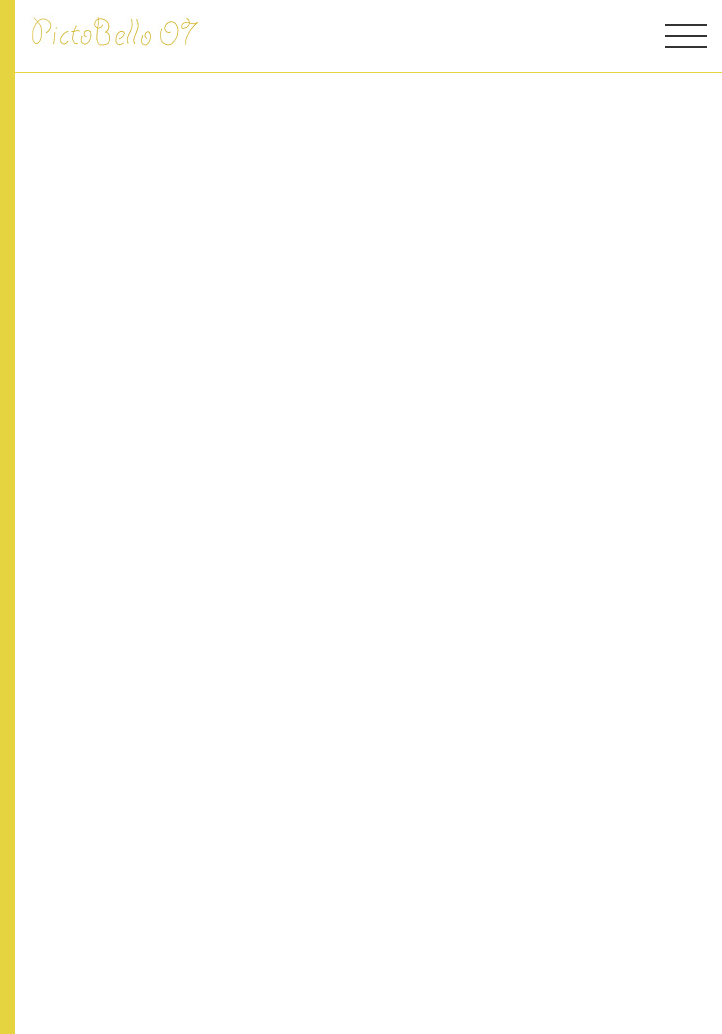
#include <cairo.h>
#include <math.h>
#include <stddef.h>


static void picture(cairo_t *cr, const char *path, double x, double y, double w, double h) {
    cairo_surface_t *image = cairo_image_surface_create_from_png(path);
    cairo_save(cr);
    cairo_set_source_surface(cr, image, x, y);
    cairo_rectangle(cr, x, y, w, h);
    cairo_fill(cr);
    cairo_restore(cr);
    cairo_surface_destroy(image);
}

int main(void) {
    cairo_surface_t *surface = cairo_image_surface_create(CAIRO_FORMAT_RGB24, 722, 1034);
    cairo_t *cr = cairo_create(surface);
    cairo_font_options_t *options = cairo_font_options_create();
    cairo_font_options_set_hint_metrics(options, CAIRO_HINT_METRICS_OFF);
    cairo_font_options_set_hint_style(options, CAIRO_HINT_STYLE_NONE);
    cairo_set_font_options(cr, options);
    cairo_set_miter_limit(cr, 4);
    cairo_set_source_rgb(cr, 1, 1, 1);
    cairo_paint(cr);
    cairo_set_source_rgb(cr, 0.898, 0.831, 0.251);
    cairo_rectangle(cr, 0, 0, 15, 1034);
    cairo_fill(cr);
    cairo_rectangle(cr, 15, 72, 707, 1);
    cairo_fill(cr);
    picture(cr, "img1.png", 30, 15, 168, 32);
    cairo_set_source_rgb(cr, 0.2, 0.2, 0.2);
    cairo_rectangle(cr, 665, 24, 42, 2);
    cairo_fill(cr);
    cairo_rectangle(cr, 665, 35, 42, 2);
    cairo_fill(cr);
    cairo_rectangle(cr, 665, 46, 42, 2);
    cairo_fill(cr);
    cairo_surface_write_to_png(surface, "page.png");
    cairo_font_options_destroy(options);
    cairo_destroy(cr);
    cairo_surface_destroy(surface);
    return 0;
}
